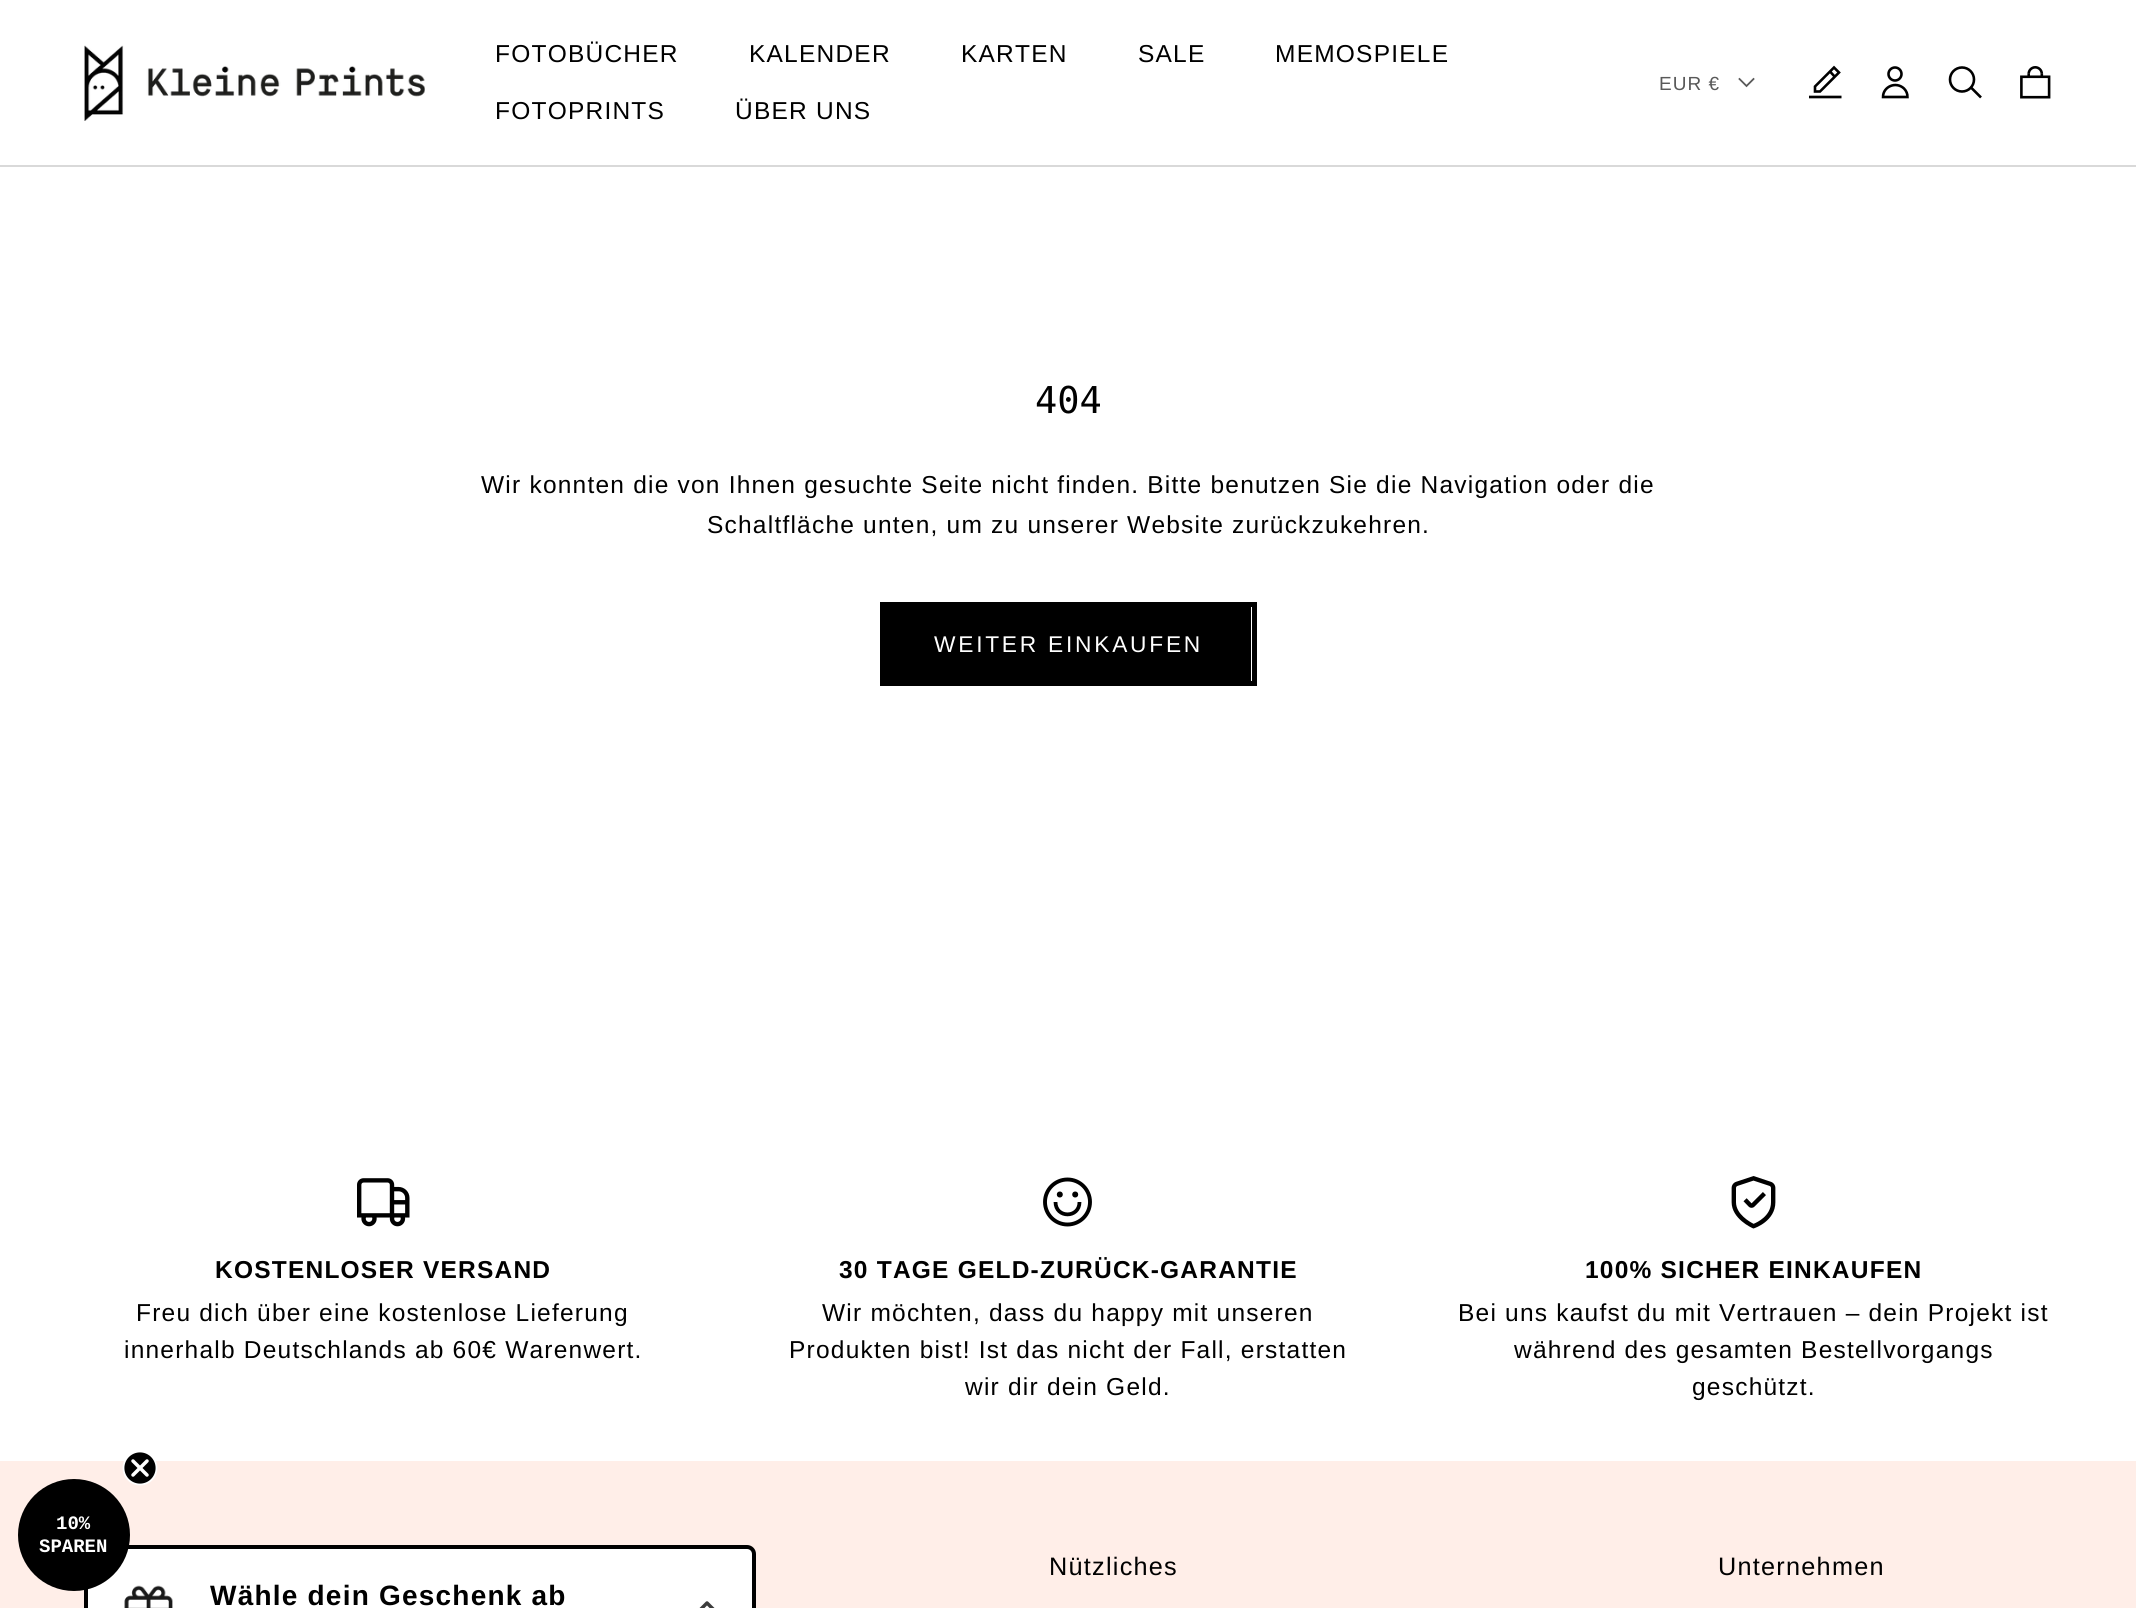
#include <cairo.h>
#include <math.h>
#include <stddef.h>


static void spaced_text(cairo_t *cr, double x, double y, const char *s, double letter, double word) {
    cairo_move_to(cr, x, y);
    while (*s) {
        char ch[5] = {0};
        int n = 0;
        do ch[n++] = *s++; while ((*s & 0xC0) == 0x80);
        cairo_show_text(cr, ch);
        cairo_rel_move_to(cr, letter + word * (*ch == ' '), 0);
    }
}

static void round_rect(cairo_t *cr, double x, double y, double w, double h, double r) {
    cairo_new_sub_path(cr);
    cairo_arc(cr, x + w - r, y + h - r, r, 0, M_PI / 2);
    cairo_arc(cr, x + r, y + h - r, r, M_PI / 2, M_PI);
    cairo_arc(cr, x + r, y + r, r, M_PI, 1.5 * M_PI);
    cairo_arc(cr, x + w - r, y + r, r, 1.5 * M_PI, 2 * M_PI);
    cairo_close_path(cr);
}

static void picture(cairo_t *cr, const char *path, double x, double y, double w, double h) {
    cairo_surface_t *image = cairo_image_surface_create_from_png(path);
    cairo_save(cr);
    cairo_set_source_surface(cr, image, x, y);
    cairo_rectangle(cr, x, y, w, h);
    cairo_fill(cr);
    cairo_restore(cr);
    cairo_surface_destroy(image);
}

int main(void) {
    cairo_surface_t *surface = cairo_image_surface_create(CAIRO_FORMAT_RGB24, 2136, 1608);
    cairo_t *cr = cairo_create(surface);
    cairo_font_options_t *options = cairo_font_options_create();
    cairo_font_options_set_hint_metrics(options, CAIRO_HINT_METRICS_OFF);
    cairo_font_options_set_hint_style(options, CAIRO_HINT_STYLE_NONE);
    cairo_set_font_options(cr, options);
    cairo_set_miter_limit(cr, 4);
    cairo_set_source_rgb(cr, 1, 1, 1);
    cairo_paint(cr);
    cairo_set_source_rgb(cr, 0.851, 0.851, 0.851);
    cairo_rectangle(cr, 0, 165, 2136, 2);
    cairo_fill(cr);
    picture(cr, "img1.png", 84, 45, 341, 76);
    cairo_select_font_face(cr, "Liberation Sans", CAIRO_FONT_SLANT_NORMAL, CAIRO_FONT_WEIGHT_NORMAL);
    cairo_set_font_size(cr, 24.5);
    cairo_set_source_rgb(cr, 0, 0, 0);
    spaced_text(cr, 495, 62, "FOTOBÜCHER", 1.22, 0);
    spaced_text(cr, 749, 62, "KALENDER", 1.22, 0);
    spaced_text(cr, 961, 62, "KARTEN", 1.22, 0);
    spaced_text(cr, 1138, 62, "SALE", 1.22, 0);
    spaced_text(cr, 1275, 62, "MEMOSPIELE", 1.22, 0);
    spaced_text(cr, 495, 119, "FOTOPRINTS", 1.22, 0);
    spaced_text(cr, 735, 119, "ÜBER UNS", 1.22, 0);
    cairo_set_font_size(cr, 19);
    cairo_set_source_rgb(cr, 0.349, 0.349, 0.349);
    spaced_text(cr, 1659, 90, "EUR €", 1, 0);
    cairo_new_path(cr);
    cairo_move_to(cr, 1739.5, 79);
    cairo_line_to(cr, 1746.5, 86);
    cairo_line_to(cr, 1753.5, 79);
    cairo_set_line_width(cr, 1.8);
    cairo_set_line_cap(cr, CAIRO_LINE_CAP_SQUARE);
    cairo_stroke(cr);
    cairo_new_path(cr);
    cairo_move_to(cr, 1809, 97);
    cairo_line_to(cr, 1841.5, 97);
    cairo_move_to(cr, 1820, 91.5);
    cairo_line_to(cr, 1815, 91.5);
    cairo_line_to(cr, 1815, 86.5);
    cairo_line_to(cr, 1834, 67.5);
    cairo_line_to(cr, 1839, 72.5);
    cairo_close_path(cr);
    cairo_move_to(cr, 1830, 71.5);
    cairo_line_to(cr, 1835, 77);
    cairo_set_source_rgb(cr, 0, 0, 0);
    cairo_set_line_width(cr, 2.6);
    cairo_set_line_cap(cr, CAIRO_LINE_CAP_BUTT);
    cairo_stroke(cr);
    cairo_new_path(cr);
    cairo_move_to(cr, 1904, 88.5);
    cairo_curve_to(cr, 1896, 81, 1883, 86.5, 1883, 97);
    cairo_line_to(cr, 1907.5, 97);
    cairo_curve_to(cr, 1907.5, 94, 1906.5, 91, 1904, 88.5);
    cairo_close_path(cr);
    cairo_stroke(cr);
    cairo_arc(cr, 1895, 74, 6.5, 0, 2 * M_PI);
    cairo_stroke(cr);
    cairo_new_path(cr);
    cairo_move_to(cr, 1970.5, 87);
    cairo_line_to(cr, 1981, 97.5);
    cairo_stroke(cr);
    cairo_arc(cr, 1962, 79.5, 12, 0, 2 * M_PI);
    cairo_stroke(cr);
    picture(cr, "img2.png", 2020, 66, 31, 33);
    cairo_set_source_rgb(cr, 1, 0.933, 0.91);
    cairo_rectangle(cr, 0, 1461, 2136, 147);
    cairo_fill(cr);
    cairo_set_source_rgb(cr, 1, 1, 1);
    round_rect(cr, 86, 1547, 668, 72, 7);
    cairo_fill_preserve(cr);
    cairo_set_source_rgb(cr, 0, 0, 0);
    cairo_set_line_width(cr, 4);
    cairo_stroke(cr);
    picture(cr, "img5.png", 124, 1585, 49, 23);
    cairo_arc(cr, 74, 1535, 56, 0, 2 * M_PI);
    cairo_fill(cr);
    cairo_arc(cr, 140, 1468, 16.5, 0, 2 * M_PI);
    cairo_fill_preserve(cr);
    cairo_set_source_rgb(cr, 1, 1, 1);
    cairo_set_line_width(cr, 1.8);
    cairo_stroke(cr);
    cairo_new_path(cr);
    cairo_move_to(cr, 133, 1461);
    cairo_line_to(cr, 147, 1475);
    cairo_move_to(cr, 133, 1475);
    cairo_line_to(cr, 147, 1461);
    cairo_close_path(cr);
    cairo_set_line_width(cr, 3.5);
    cairo_set_line_cap(cr, CAIRO_LINE_CAP_ROUND);
    cairo_set_line_join(cr, CAIRO_LINE_JOIN_ROUND);
    cairo_stroke(cr);
    cairo_select_font_face(cr, "Liberation Mono", CAIRO_FONT_SLANT_NORMAL, CAIRO_FONT_WEIGHT_BOLD);
    cairo_move_to(cr, 56, 1529);
    cairo_show_text(cr, "10%");
    cairo_move_to(cr, 39, 1552);
    cairo_show_text(cr, "SPAREN");
    cairo_select_font_face(cr, "DejaVu Sans Mono", CAIRO_FONT_SLANT_NORMAL, CAIRO_FONT_WEIGHT_NORMAL);
    cairo_set_font_size(cr, 37);
    cairo_set_source_rgb(cr, 0, 0, 0);
    cairo_move_to(cr, 1035, 413);
    cairo_show_text(cr, "404");
    cairo_select_font_face(cr, "Liberation Sans", CAIRO_FONT_SLANT_NORMAL, CAIRO_FONT_WEIGHT_NORMAL);
    cairo_set_font_size(cr, 24.5);
    spaced_text(cr, 481, 493, "Wir konnten die von Ihnen gesuchte Seite nicht finden. Bitte benutzen Sie die Navigation oder die", 1.22, 0);
    spaced_text(cr, 707, 533, "Schaltfläche unten, um zu unserer Website zurückzukehren.", 1.22, 0);
    cairo_rectangle(cr, 885, 607, 366, 74);
    cairo_fill(cr);
    cairo_rectangle(cr, 882.5, 604.5, 372, 79);
    cairo_set_line_width(cr, 5);
    cairo_set_line_cap(cr, CAIRO_LINE_CAP_BUTT);
    cairo_set_line_join(cr, CAIRO_LINE_JOIN_MITER);
    cairo_stroke(cr);
    cairo_set_font_size(cr, 22.75);
    cairo_set_source_rgb(cr, 1, 1, 1);
    spaced_text(cr, 934, 652, "WEITER EINKAUFEN", 2.75, 0);
    picture(cr, "img3.png", 357, 1178, 53, 49);
    cairo_select_font_face(cr, "Liberation Sans", CAIRO_FONT_SLANT_NORMAL, CAIRO_FONT_WEIGHT_BOLD);
    cairo_set_font_size(cr, 24.5);
    cairo_set_source_rgb(cr, 0, 0, 0);
    spaced_text(cr, 215, 1278, "KOSTENLOSER VERSAND", 1.22, 0);
    cairo_select_font_face(cr, "Liberation Sans", CAIRO_FONT_SLANT_NORMAL, CAIRO_FONT_WEIGHT_NORMAL);
    spaced_text(cr, 136, 1321, "Freu dich über eine kostenlose Lieferung", 1.22, 0);
    spaced_text(cr, 124, 1358, "innerhalb Deutschlands ab 60€ Warenwert.", 1.22, 0);
    cairo_new_path(cr);
    cairo_arc(cr, 1067.5, 1202, 22.5, 0, 2 * M_PI);
    cairo_set_line_width(cr, 3.9);
    cairo_stroke(cr);
    cairo_arc(cr, 1075.2, 1194.5, 3, 0, 2 * M_PI);
    cairo_fill(cr);
    cairo_arc(cr, 1059.8, 1194.5, 3, 0, 2 * M_PI);
    cairo_fill(cr);
    cairo_new_path(cr);
    cairo_move_to(cr, 1055.5, 1202);
    cairo_curve_to(cr, 1055.5, 1218.5, 1079.5, 1218.5, 1079.5, 1202);
    cairo_set_line_width(cr, 3.8);
    cairo_stroke(cr);
    cairo_select_font_face(cr, "Liberation Sans", CAIRO_FONT_SLANT_NORMAL, CAIRO_FONT_WEIGHT_BOLD);
    spaced_text(cr, 839, 1278, "30 TAGE GELD-ZURÜCK-GARANTIE", 1.22, 0);
    cairo_select_font_face(cr, "Liberation Sans", CAIRO_FONT_SLANT_NORMAL, CAIRO_FONT_WEIGHT_NORMAL);
    spaced_text(cr, 822, 1321, "Wir möchten, dass du happy mit unseren", 1.22, 0);
    spaced_text(cr, 789, 1358, "Produkten bist! Ist das nicht der Fall, erstatten", 1.22, 0);
    spaced_text(cr, 965, 1395, "wir dir dein Geld.", 1.22, 0);
    picture(cr, "img4.png", 1731, 1176, 45, 53);
    cairo_select_font_face(cr, "Liberation Sans", CAIRO_FONT_SLANT_NORMAL, CAIRO_FONT_WEIGHT_BOLD);
    spaced_text(cr, 1585, 1278, "100% SICHER EINKAUFEN", 1.22, 0);
    cairo_select_font_face(cr, "Liberation Sans", CAIRO_FONT_SLANT_NORMAL, CAIRO_FONT_WEIGHT_NORMAL);
    spaced_text(cr, 1458, 1321, "Bei uns kaufst du mit Vertrauen – dein Projekt ist", 1.22, 0);
    spaced_text(cr, 1514, 1358, "während des gesamten Bestellvorgangs", 1.22, 0);
    spaced_text(cr, 1692, 1395, "geschützt.", 1.22, 0);
    cairo_set_font_size(cr, 25.25);
    spaced_text(cr, 1049, 1575, "Nützliches", 1.25, 0);
    spaced_text(cr, 1718, 1575, "Unternehmen", 1.25, 0);
    cairo_select_font_face(cr, "Liberation Sans", CAIRO_FONT_SLANT_NORMAL, CAIRO_FONT_WEIGHT_BOLD);
    cairo_set_font_size(cr, 28);
    spaced_text(cr, 210, 1605, "Wähle dein Geschenk ab", 1.22, 0);
    cairo_new_path(cr);
    cairo_move_to(cr, 718.5, 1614.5);
    cairo_line_to(cr, 707, 1603);
    cairo_line_to(cr, 695.5, 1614.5);
    cairo_set_source_rgb(cr, 0.235, 0.235, 0.235);
    cairo_set_line_width(cr, 3.5);
    cairo_set_line_cap(cr, CAIRO_LINE_CAP_ROUND);
    cairo_set_line_join(cr, CAIRO_LINE_JOIN_ROUND);
    cairo_stroke(cr);
    cairo_surface_write_to_png(surface, "page.png");
    cairo_font_options_destroy(options);
    cairo_destroy(cr);
    cairo_surface_destroy(surface);
    return 0;
}
